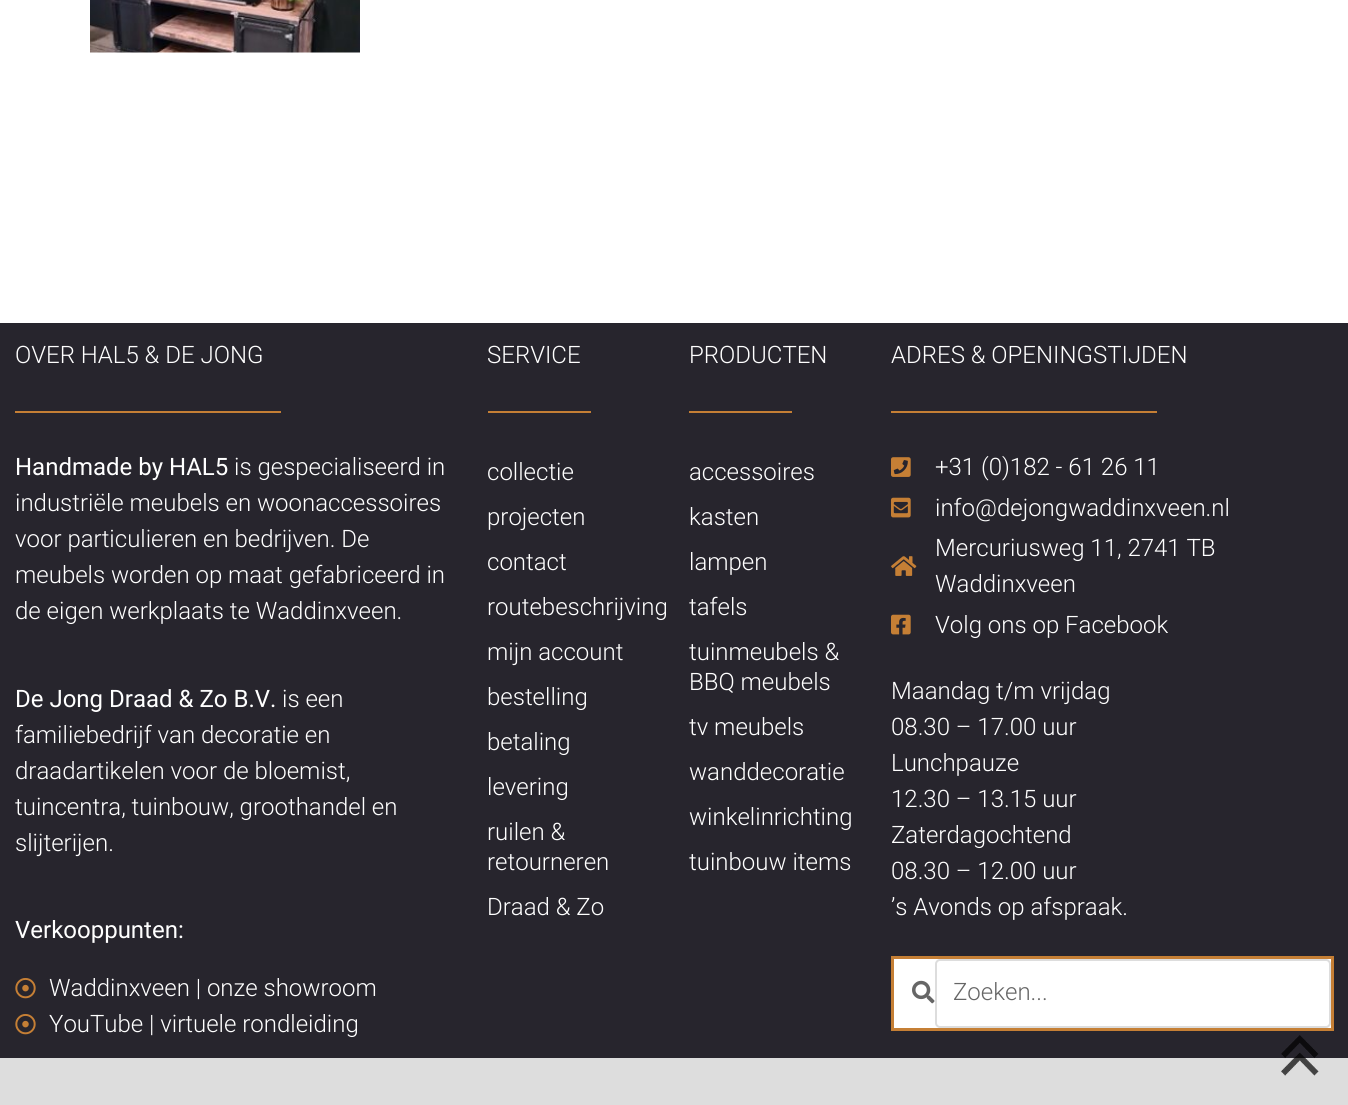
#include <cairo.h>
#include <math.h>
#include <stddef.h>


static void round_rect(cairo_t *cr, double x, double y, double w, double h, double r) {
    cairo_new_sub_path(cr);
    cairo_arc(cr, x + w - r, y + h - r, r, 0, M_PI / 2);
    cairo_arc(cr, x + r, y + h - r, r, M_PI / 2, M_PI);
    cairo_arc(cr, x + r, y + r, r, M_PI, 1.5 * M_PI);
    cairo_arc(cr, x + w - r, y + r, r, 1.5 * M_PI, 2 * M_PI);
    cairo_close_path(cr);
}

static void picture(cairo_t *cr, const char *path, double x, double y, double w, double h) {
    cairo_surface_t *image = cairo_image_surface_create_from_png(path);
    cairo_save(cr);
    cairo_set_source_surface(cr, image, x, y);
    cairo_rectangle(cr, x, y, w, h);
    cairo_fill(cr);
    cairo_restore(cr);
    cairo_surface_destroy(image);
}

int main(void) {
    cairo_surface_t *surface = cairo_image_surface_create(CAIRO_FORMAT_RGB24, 1348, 1105);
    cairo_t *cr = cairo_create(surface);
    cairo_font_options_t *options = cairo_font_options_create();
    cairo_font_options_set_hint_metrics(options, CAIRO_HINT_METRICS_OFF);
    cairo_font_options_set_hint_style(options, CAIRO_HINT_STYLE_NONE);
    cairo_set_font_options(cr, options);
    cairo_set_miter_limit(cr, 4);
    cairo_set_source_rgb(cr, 1, 1, 1);
    cairo_paint(cr);
    picture(cr, "img1.png", 90, 0, 270, 53);
    cairo_set_source_rgb(cr, 0.153, 0.145, 0.176);
    cairo_rectangle(cr, 0, 323, 1348, 735);
    cairo_fill(cr);
    cairo_select_font_face(cr, "Roboto Light", CAIRO_FONT_SLANT_NORMAL, CAIRO_FONT_WEIGHT_NORMAL);
    cairo_set_font_size(cr, 24);
    cairo_set_source_rgb(cr, 1, 1, 1);
    cairo_move_to(cr, 15, 363);
    cairo_show_text(cr, "OVER HAL5 & DE JONG");
    cairo_set_source_rgb(cr, 0.773, 0.498, 0.208);
    cairo_rectangle(cr, 15, 411, 266, 2);
    cairo_fill(cr);
    cairo_select_font_face(cr, "Roboto", CAIRO_FONT_SLANT_NORMAL, CAIRO_FONT_WEIGHT_NORMAL);
    cairo_set_source_rgb(cr, 1, 1, 1);
    cairo_move_to(cr, 15, 475);
    cairo_show_text(cr, "Handmade by HAL5");
    cairo_select_font_face(cr, "Roboto Light", CAIRO_FONT_SLANT_NORMAL, CAIRO_FONT_WEIGHT_NORMAL);
    cairo_move_to(cr, 234, 475);
    cairo_show_text(cr, "is gespecialiseerd in");
    cairo_move_to(cr, 15, 511);
    cairo_show_text(cr, "industriële meubels en woonaccessoires");
    cairo_move_to(cr, 15, 547);
    cairo_show_text(cr, "voor particulieren en bedrijven. De");
    cairo_move_to(cr, 15, 583);
    cairo_show_text(cr, "meubels worden op maat gefabriceerd in");
    cairo_move_to(cr, 15, 619);
    cairo_show_text(cr, "de eigen werkplaats te Waddinxveen.");
    cairo_select_font_face(cr, "Roboto", CAIRO_FONT_SLANT_NORMAL, CAIRO_FONT_WEIGHT_NORMAL);
    cairo_move_to(cr, 15, 707);
    cairo_show_text(cr, "De Jong Draad & Zo B.V.");
    cairo_select_font_face(cr, "Roboto Light", CAIRO_FONT_SLANT_NORMAL, CAIRO_FONT_WEIGHT_NORMAL);
    cairo_move_to(cr, 282, 707);
    cairo_show_text(cr, "is een");
    cairo_move_to(cr, 15, 743);
    cairo_show_text(cr, "familiebedrijf van decoratie en");
    cairo_move_to(cr, 15, 779);
    cairo_show_text(cr, "draadartikelen voor de bloemist,");
    cairo_move_to(cr, 15, 815);
    cairo_show_text(cr, "tuincentra, tuinbouw, groothandel en");
    cairo_move_to(cr, 15, 851);
    cairo_show_text(cr, "slijterijen.");
    cairo_select_font_face(cr, "Roboto", CAIRO_FONT_SLANT_NORMAL, CAIRO_FONT_WEIGHT_NORMAL);
    cairo_move_to(cr, 15, 938);
    cairo_show_text(cr, "Verkooppunten:");
    picture(cr, "img2.png", 15, 978, 21, 21);
    cairo_select_font_face(cr, "Roboto Light", CAIRO_FONT_SLANT_NORMAL, CAIRO_FONT_WEIGHT_NORMAL);
    cairo_move_to(cr, 49, 996);
    cairo_show_text(cr, "Waddinxveen | onze showroom");
    picture(cr, "img2.png", 15, 1014, 21, 21);
    cairo_move_to(cr, 49, 1032);
    cairo_show_text(cr, "YouTube | virtuele rondleiding");
    cairo_move_to(cr, 487, 363);
    cairo_show_text(cr, "SERVICE");
    cairo_set_source_rgb(cr, 0.773, 0.498, 0.208);
    cairo_rectangle(cr, 488, 411, 103, 2);
    cairo_fill(cr);
    cairo_set_source_rgb(cr, 1, 1, 1);
    cairo_move_to(cr, 487, 480);
    cairo_show_text(cr, "collectie");
    cairo_move_to(cr, 487, 525);
    cairo_show_text(cr, "projecten");
    cairo_move_to(cr, 487, 570);
    cairo_show_text(cr, "contact");
    cairo_move_to(cr, 487, 615);
    cairo_show_text(cr, "routebeschrijving");
    cairo_move_to(cr, 487, 660);
    cairo_show_text(cr, "mijn account");
    cairo_move_to(cr, 487, 705);
    cairo_show_text(cr, "bestelling");
    cairo_move_to(cr, 487, 750);
    cairo_show_text(cr, "betaling");
    cairo_move_to(cr, 487, 795);
    cairo_show_text(cr, "levering");
    cairo_move_to(cr, 487, 840);
    cairo_show_text(cr, "ruilen &");
    cairo_move_to(cr, 487, 870);
    cairo_show_text(cr, "retourneren");
    cairo_move_to(cr, 487, 915);
    cairo_show_text(cr, "Draad & Zo");
    cairo_move_to(cr, 689, 363);
    cairo_show_text(cr, "PRODUCTEN");
    cairo_set_source_rgb(cr, 0.773, 0.498, 0.208);
    cairo_rectangle(cr, 689, 411, 103, 2);
    cairo_fill(cr);
    cairo_set_source_rgb(cr, 1, 1, 1);
    cairo_move_to(cr, 689, 480);
    cairo_show_text(cr, "accessoires");
    cairo_move_to(cr, 689, 525);
    cairo_show_text(cr, "kasten");
    cairo_move_to(cr, 689, 570);
    cairo_show_text(cr, "lampen");
    cairo_move_to(cr, 689, 615);
    cairo_show_text(cr, "tafels");
    cairo_move_to(cr, 689, 660);
    cairo_show_text(cr, "tuinmeubels &");
    cairo_move_to(cr, 689, 690);
    cairo_show_text(cr, "BBQ meubels");
    cairo_move_to(cr, 689, 735);
    cairo_show_text(cr, "tv meubels");
    cairo_move_to(cr, 689, 780);
    cairo_show_text(cr, "wanddecoratie");
    cairo_move_to(cr, 689, 825);
    cairo_show_text(cr, "winkelinrichting");
    cairo_move_to(cr, 689, 870);
    cairo_show_text(cr, "tuinbouw items");
    cairo_move_to(cr, 891, 363);
    cairo_show_text(cr, "ADRES & OPENINGSTIJDEN");
    cairo_set_source_rgb(cr, 0.773, 0.498, 0.208);
    cairo_rectangle(cr, 891, 411, 266, 2);
    cairo_fill(cr);
    picture(cr, "img3.png", 891, 457, 20, 20);
    cairo_set_source_rgb(cr, 1, 1, 1);
    cairo_move_to(cr, 935, 475);
    cairo_show_text(cr, "+31 (0)182 - 61 26 11");
    picture(cr, "img4.png", 891, 497, 20, 21);
    cairo_move_to(cr, 935, 516);
    cairo_show_text(cr, "info@dejongwaddinxveen.nl");
    picture(cr, "img5.png", 891, 556, 26, 20);
    cairo_move_to(cr, 935, 556);
    cairo_show_text(cr, "Mercuriusweg 11, 2741 TB");
    cairo_move_to(cr, 935, 592);
    cairo_show_text(cr, "Waddinxveen");
    picture(cr, "img6.png", 891, 614, 20, 21);
    cairo_move_to(cr, 935, 633);
    cairo_show_text(cr, "Volg ons op Facebook");
    cairo_move_to(cr, 891, 699);
    cairo_show_text(cr, "Maandag t/m vrijdag");
    cairo_move_to(cr, 891, 735);
    cairo_show_text(cr, "08.30 – 17.00 uur");
    cairo_move_to(cr, 891, 771);
    cairo_show_text(cr, "Lunchpauze");
    cairo_move_to(cr, 891, 807);
    cairo_show_text(cr, "12.30 – 13.15 uur");
    cairo_move_to(cr, 891, 843);
    cairo_show_text(cr, "Zaterdagochtend");
    cairo_move_to(cr, 891, 879);
    cairo_show_text(cr, "08.30 – 12.00 uur");
    cairo_move_to(cr, 891, 915);
    cairo_show_text(cr, "’s Avonds op afspraak.");
    cairo_rectangle(cr, 892.5, 957.5, 440, 72);
    cairo_fill_preserve(cr);
    cairo_set_source_rgb(cr, 0.773, 0.498, 0.208);
    cairo_set_line_width(cr, 3);
    cairo_stroke(cr);
    picture(cr, "img7.png", 912, 980, 23, 24);
    round_rect(cr, 936, 960, 394, 67, 4);
    cairo_set_source_rgb(cr, 0.867, 0.867, 0.867);
    cairo_set_line_width(cr, 2);
    cairo_stroke(cr);
    cairo_set_source_rgb(cr, 0.4, 0.4, 0.4);
    cairo_move_to(cr, 953, 1000);
    cairo_show_text(cr, "Zoeken...");
    cairo_set_source_rgb(cr, 0.867, 0.867, 0.867);
    cairo_rectangle(cr, 0, 1058, 1348, 47);
    cairo_fill(cr);
    picture(cr, "img8.png", 1281, 1035, 38, 41);
    cairo_surface_write_to_png(surface, "page.png");
    cairo_font_options_destroy(options);
    cairo_destroy(cr);
    cairo_surface_destroy(surface);
    return 0;
}
